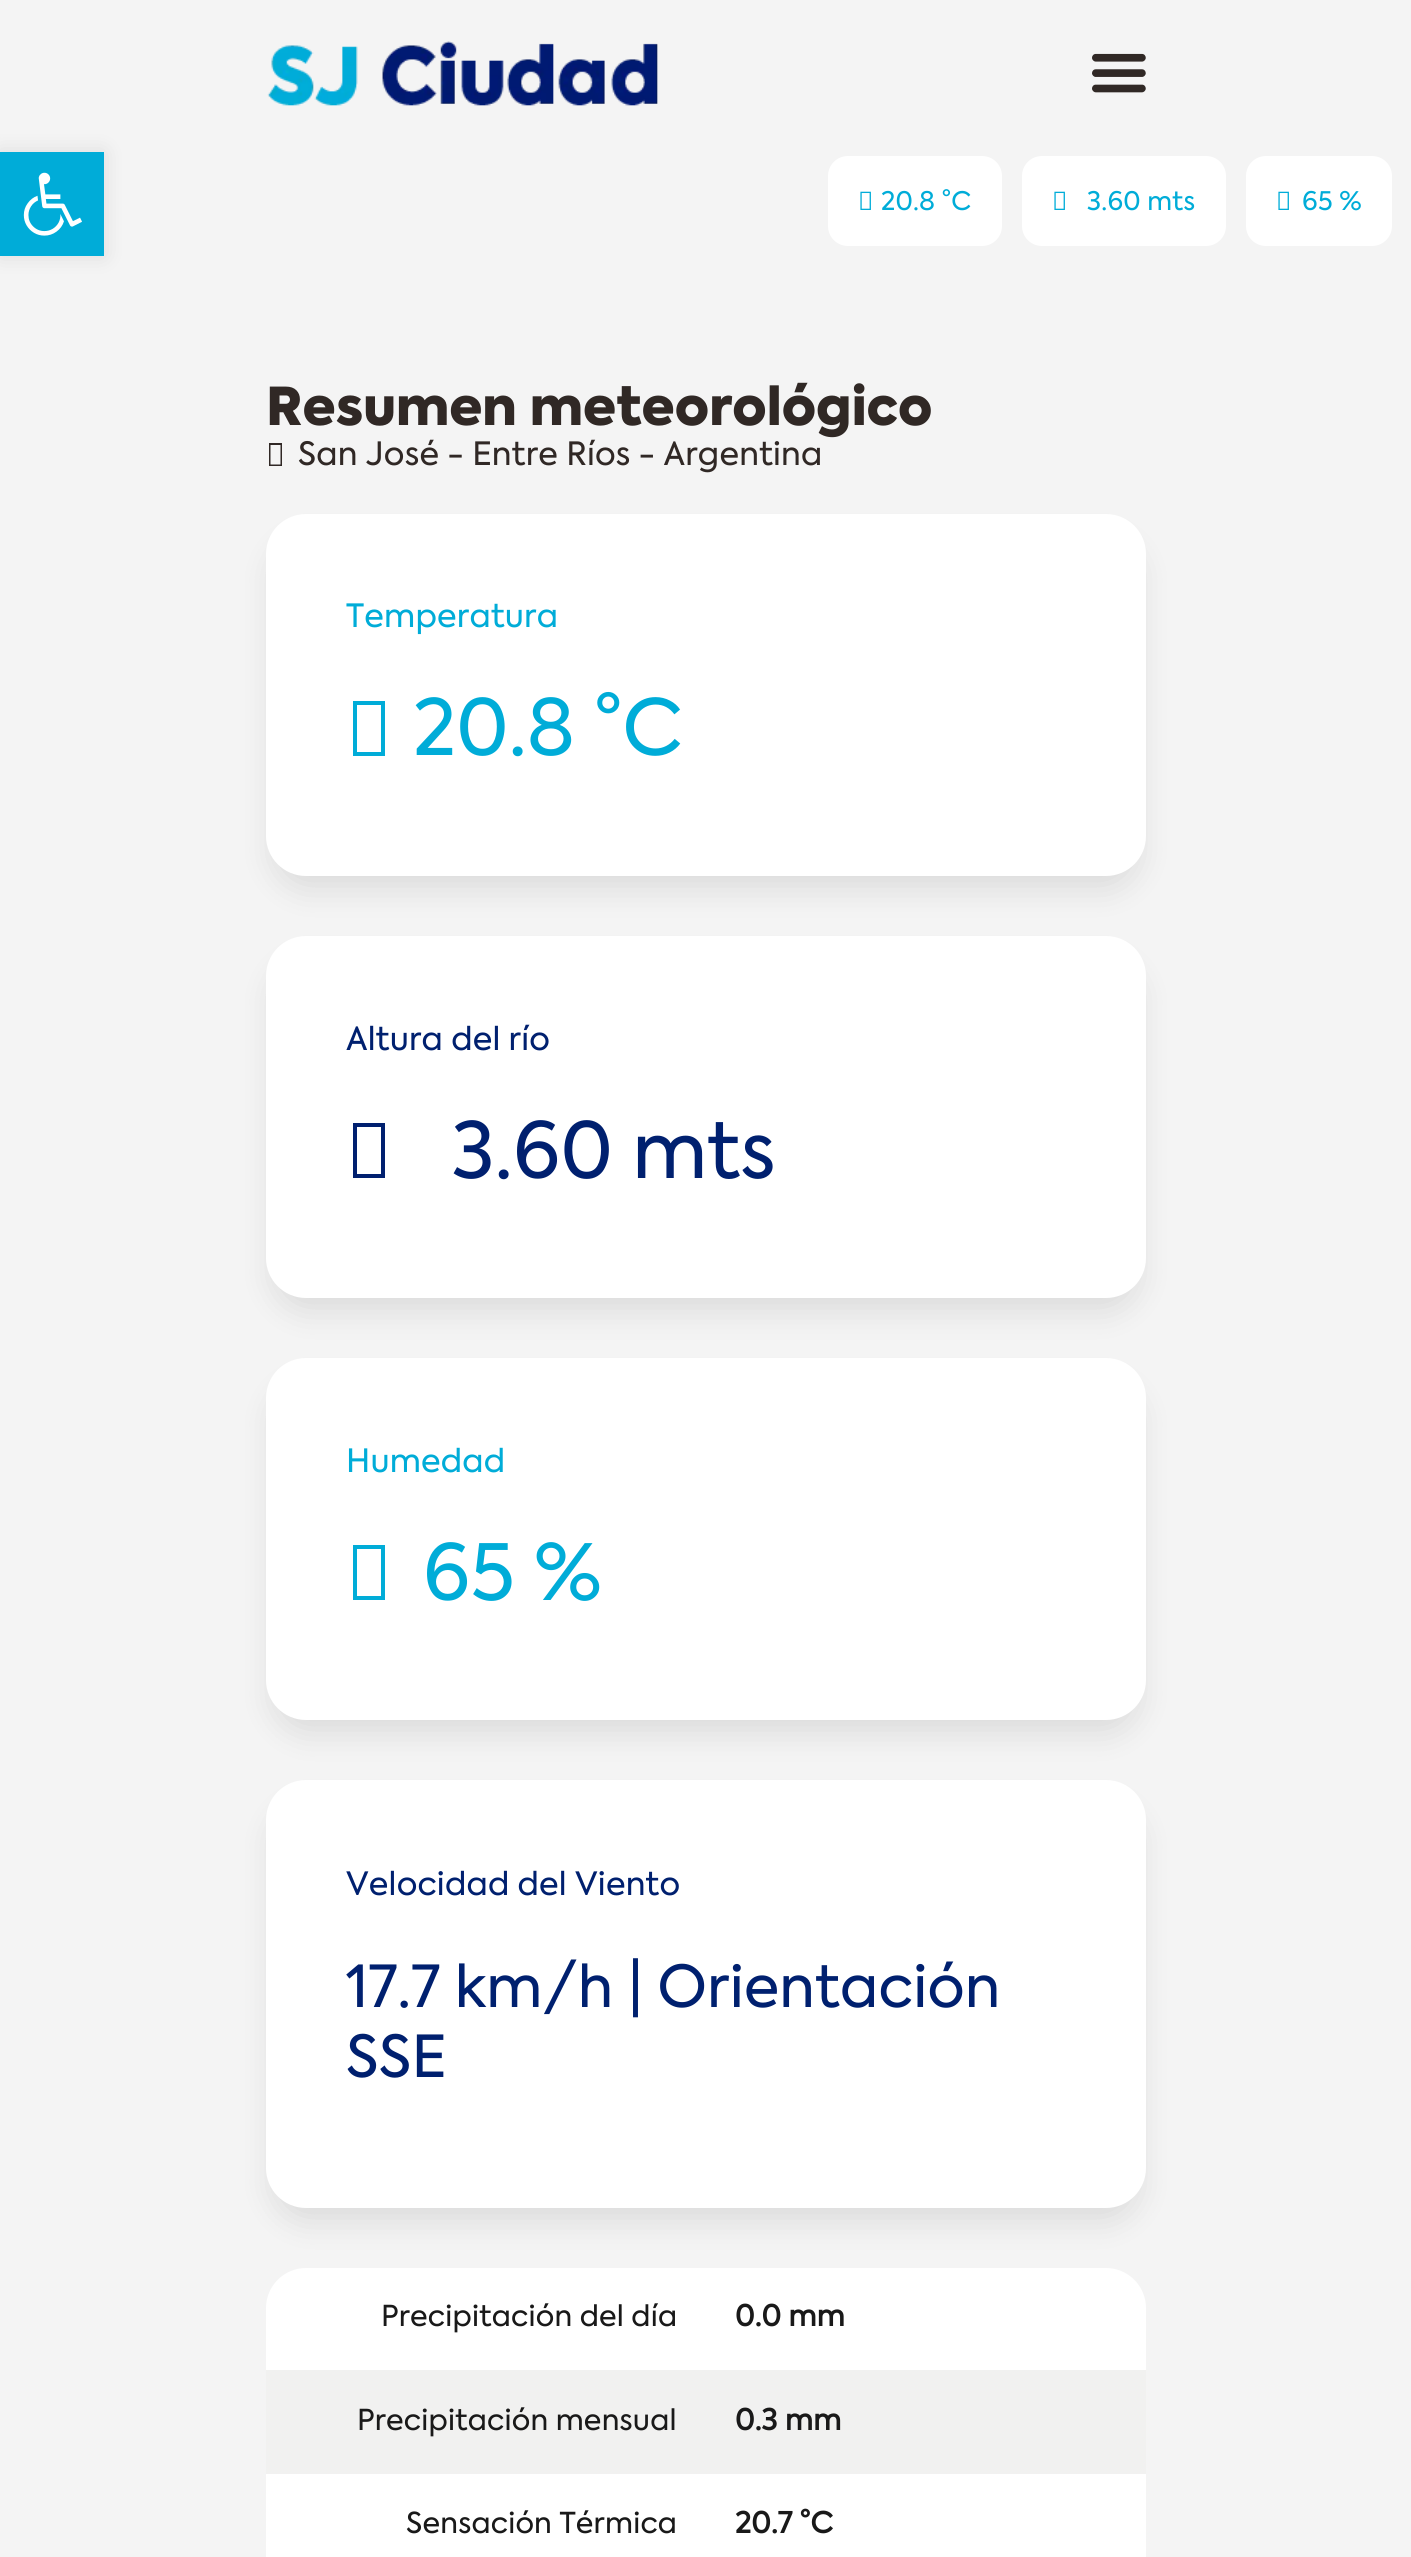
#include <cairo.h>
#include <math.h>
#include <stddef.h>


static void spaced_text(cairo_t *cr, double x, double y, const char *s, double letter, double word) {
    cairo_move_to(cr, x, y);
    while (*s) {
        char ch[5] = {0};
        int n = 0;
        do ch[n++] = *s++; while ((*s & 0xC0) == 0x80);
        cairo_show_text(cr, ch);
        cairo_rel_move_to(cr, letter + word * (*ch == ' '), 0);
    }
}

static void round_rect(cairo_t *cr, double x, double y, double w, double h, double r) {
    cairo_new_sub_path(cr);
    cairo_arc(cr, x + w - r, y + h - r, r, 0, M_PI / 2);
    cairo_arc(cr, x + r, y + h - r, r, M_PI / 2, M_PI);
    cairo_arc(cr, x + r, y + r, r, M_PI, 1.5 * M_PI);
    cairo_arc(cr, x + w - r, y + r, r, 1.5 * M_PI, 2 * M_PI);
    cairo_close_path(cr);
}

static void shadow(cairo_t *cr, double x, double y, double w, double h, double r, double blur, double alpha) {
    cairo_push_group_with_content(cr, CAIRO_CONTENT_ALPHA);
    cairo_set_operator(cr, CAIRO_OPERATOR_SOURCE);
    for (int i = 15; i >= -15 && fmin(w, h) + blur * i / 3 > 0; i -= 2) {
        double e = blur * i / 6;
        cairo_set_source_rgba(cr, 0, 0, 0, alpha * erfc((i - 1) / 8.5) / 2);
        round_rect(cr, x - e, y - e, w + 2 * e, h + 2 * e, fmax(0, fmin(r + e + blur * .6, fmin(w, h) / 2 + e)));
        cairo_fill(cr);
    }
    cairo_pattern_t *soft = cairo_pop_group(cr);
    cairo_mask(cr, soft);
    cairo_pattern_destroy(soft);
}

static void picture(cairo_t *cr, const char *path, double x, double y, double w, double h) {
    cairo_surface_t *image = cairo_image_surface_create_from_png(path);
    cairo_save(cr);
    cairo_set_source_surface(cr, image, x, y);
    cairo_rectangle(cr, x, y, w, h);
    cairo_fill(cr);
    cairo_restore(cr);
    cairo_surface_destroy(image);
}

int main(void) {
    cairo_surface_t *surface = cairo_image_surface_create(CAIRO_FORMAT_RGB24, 1411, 2557);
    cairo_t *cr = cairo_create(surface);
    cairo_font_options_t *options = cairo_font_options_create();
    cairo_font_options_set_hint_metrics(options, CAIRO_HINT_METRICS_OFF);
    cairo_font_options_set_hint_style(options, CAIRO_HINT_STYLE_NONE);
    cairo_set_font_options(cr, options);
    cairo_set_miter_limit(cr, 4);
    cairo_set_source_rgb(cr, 0.957, 0.957, 0.957);
    cairo_paint(cr);
    cairo_set_source_rgb(cr, 0, 0, 0);
    shadow(cr, 0, 152, 104, 104, 0, 10, 0.1);
    cairo_set_source_rgb(cr, 0, 0.675, 0.847);
    cairo_rectangle(cr, 0, 152, 104, 104);
    cairo_fill(cr);
    picture(cr, "img1.png", 23, 172, 59, 64);
    picture(cr, "img2.png", 267, 41, 391, 65);
    picture(cr, "img3.png", 1092, 53, 54, 40);
    cairo_set_source_rgb(cr, 1, 1, 1);
    round_rect(cr, 828, 156, 174, 90, 20);
    cairo_fill(cr);
    picture(cr, "img4.png", 860, 191, 11, 19);
    cairo_select_font_face(cr, "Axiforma", CAIRO_FONT_SLANT_NORMAL, CAIRO_FONT_WEIGHT_NORMAL);
    cairo_set_font_size(cr, 25.5);
    cairo_set_source_rgb(cr, 0, 0.675, 0.847);
    spaced_text(cr, 881, 210, "20.8 °C", 0.2, 0);
    cairo_set_source_rgb(cr, 1, 1, 1);
    round_rect(cr, 1022, 156, 204, 90, 20);
    cairo_fill(cr);
    picture(cr, "img4.png", 1054, 191, 11, 19);
    cairo_set_source_rgb(cr, 0, 0.675, 0.847);
    spaced_text(cr, 1087, 210, "3.60 mts", 0.2, 0);
    cairo_set_source_rgb(cr, 1, 1, 1);
    round_rect(cr, 1246, 156, 146, 90, 20);
    cairo_fill(cr);
    picture(cr, "img4.png", 1278, 191, 11, 19);
    cairo_set_source_rgb(cr, 0, 0.675, 0.847);
    spaced_text(cr, 1302, 210, "65 %", 0.2, 0);
    cairo_select_font_face(cr, "Axiforma Black", CAIRO_FONT_SLANT_NORMAL, CAIRO_FONT_WEIGHT_NORMAL);
    cairo_set_font_size(cr, 52);
    cairo_set_source_rgb(cr, 0.188, 0.157, 0.145);
    cairo_move_to(cr, 266, 425);
    cairo_show_text(cr, "Resumen meteorológico");
    cairo_new_path(cr);
    cairo_move_to(cr, 269, 466);
    cairo_line_to(cr, 269, 443);
    cairo_line_to(cr, 282, 443);
    cairo_line_to(cr, 282, 466);
    cairo_close_path(cr);
    cairo_move_to(cr, 270.5, 464.5);
    cairo_line_to(cr, 280.5, 464.5);
    cairo_line_to(cr, 280.5, 445);
    cairo_line_to(cr, 270.5, 445);
    cairo_close_path(cr);
    cairo_fill(cr);
    cairo_select_font_face(cr, "Axiforma", CAIRO_FONT_SLANT_NORMAL, CAIRO_FONT_WEIGHT_NORMAL);
    cairo_set_font_size(cr, 32);
    spaced_text(cr, 298, 465, "San José - Entre Ríos - Argentina", 0.2, 0);
    cairo_set_source_rgb(cr, 0, 0, 0);
    shadow(cr, 272, 540, 868, 350, 34, 15, 0.1);
    cairo_set_source_rgb(cr, 1, 1, 1);
    round_rect(cr, 266, 514, 880, 362, 40);
    cairo_fill(cr);
    cairo_set_source_rgb(cr, 0, 0.675, 0.847);
    spaced_text(cr, 346, 627, "Temperatura", 0.2, 0);
    cairo_new_path(cr);
    cairo_move_to(cr, 353, 756);
    cairo_line_to(cr, 353, 701);
    cairo_line_to(cr, 385, 701);
    cairo_line_to(cr, 385, 756);
    cairo_close_path(cr);
    cairo_move_to(cr, 357, 752);
    cairo_line_to(cr, 381, 752);
    cairo_line_to(cr, 381, 705);
    cairo_line_to(cr, 357, 705);
    cairo_close_path(cr);
    cairo_fill(cr);
    cairo_set_font_size(cr, 77);
    spaced_text(cr, 413, 755, "20.8 °C", 0.2, 0);
    cairo_set_source_rgb(cr, 0, 0, 0);
    shadow(cr, 272, 962, 868, 350, 34, 15, 0.1);
    cairo_set_source_rgb(cr, 1, 1, 1);
    round_rect(cr, 266, 936, 880, 362, 40);
    cairo_fill(cr);
    cairo_set_font_size(cr, 32);
    cairo_set_source_rgb(cr, 0, 0.125, 0.435);
    spaced_text(cr, 346, 1050, "Altura del río", 0.2, 0);
    cairo_new_path(cr);
    cairo_move_to(cr, 353, 1178);
    cairo_line_to(cr, 353, 1123);
    cairo_line_to(cr, 385, 1123);
    cairo_line_to(cr, 385, 1178);
    cairo_close_path(cr);
    cairo_move_to(cr, 357, 1174);
    cairo_line_to(cr, 381, 1174);
    cairo_line_to(cr, 381, 1127);
    cairo_line_to(cr, 357, 1127);
    cairo_close_path(cr);
    cairo_fill(cr);
    cairo_set_font_size(cr, 77);
    spaced_text(cr, 452, 1178, "3.60 mts", 0.2, 0);
    cairo_set_source_rgb(cr, 0, 0, 0);
    shadow(cr, 272, 1384, 868, 350, 34, 15, 0.1);
    cairo_set_source_rgb(cr, 1, 1, 1);
    round_rect(cr, 266, 1358, 880, 362, 40);
    cairo_fill(cr);
    cairo_set_font_size(cr, 32);
    cairo_set_source_rgb(cr, 0, 0.675, 0.847);
    spaced_text(cr, 346, 1472, "Humedad", 0.2, 0);
    cairo_new_path(cr);
    cairo_move_to(cr, 353, 1600);
    cairo_line_to(cr, 353, 1545);
    cairo_line_to(cr, 385, 1545);
    cairo_line_to(cr, 385, 1600);
    cairo_close_path(cr);
    cairo_move_to(cr, 357, 1596);
    cairo_line_to(cr, 381, 1596);
    cairo_line_to(cr, 381, 1549);
    cairo_line_to(cr, 357, 1549);
    cairo_close_path(cr);
    cairo_fill(cr);
    cairo_set_font_size(cr, 77);
    spaced_text(cr, 423, 1600, "65 %", 0.2, 0);
    cairo_set_source_rgb(cr, 0, 0, 0);
    shadow(cr, 272, 1806, 868, 416, 34, 15, 0.1);
    cairo_set_source_rgb(cr, 1, 1, 1);
    round_rect(cr, 266, 1780, 880, 428, 40);
    cairo_fill(cr);
    cairo_set_font_size(cr, 32);
    cairo_set_source_rgb(cr, 0, 0.125, 0.435);
    spaced_text(cr, 346, 1895, "Velocidad del Viento", 0.2, 0);
    cairo_set_font_size(cr, 57.6);
    spaced_text(cr, 346, 2007, "17.7 km/h | Orientación", 0.2, 0);
    spaced_text(cr, 346, 2077, "SSE", 0.2, 0);
    cairo_set_source_rgb(cr, 1, 1, 1);
    cairo_new_path(cr);
    cairo_move_to(cr, 306, 2268);
    cairo_line_to(cr, 706, 2268);
    cairo_line_to(cr, 706, 2370);
    cairo_line_to(cr, 266, 2370);
    cairo_line_to(cr, 266, 2308);
    cairo_curve_to(cr, 266, 2286, 284, 2268, 306, 2268);
    cairo_close_path(cr);
    cairo_fill(cr);
    cairo_set_font_size(cr, 28.75);
    cairo_set_source_rgb(cr, 0.098, 0.098, 0.098);
    spaced_text(cr, 381, 2326, "Precipitación del día", 0.2, 0);
    cairo_set_source_rgb(cr, 1, 1, 1);
    cairo_new_path(cr);
    cairo_move_to(cr, 706, 2268);
    cairo_line_to(cr, 1106, 2268);
    cairo_curve_to(cr, 1128, 2268, 1146, 2286, 1146, 2308);
    cairo_line_to(cr, 1146, 2370);
    cairo_line_to(cr, 706, 2370);
    cairo_close_path(cr);
    cairo_fill(cr);
    cairo_select_font_face(cr, "Axiforma", CAIRO_FONT_SLANT_NORMAL, CAIRO_FONT_WEIGHT_BOLD);
    cairo_set_source_rgb(cr, 0.098, 0.098, 0.098);
    spaced_text(cr, 735, 2326, "0.0 mm", 0.2, 0);
    cairo_set_source_rgb(cr, 0.945, 0.945, 0.941);
    cairo_rectangle(cr, 266, 2370, 880, 104);
    cairo_fill(cr);
    cairo_select_font_face(cr, "Axiforma", CAIRO_FONT_SLANT_NORMAL, CAIRO_FONT_WEIGHT_NORMAL);
    cairo_set_source_rgb(cr, 0.098, 0.098, 0.098);
    spaced_text(cr, 357, 2430, "Precipitación mensual", 0.2, 0);
    cairo_select_font_face(cr, "Axiforma", CAIRO_FONT_SLANT_NORMAL, CAIRO_FONT_WEIGHT_BOLD);
    spaced_text(cr, 735, 2430, "0.3 mm", 0.2, 0);
    cairo_set_source_rgb(cr, 1, 1, 1);
    cairo_rectangle(cr, 266, 2474, 880, 83);
    cairo_fill(cr);
    cairo_select_font_face(cr, "Axiforma", CAIRO_FONT_SLANT_NORMAL, CAIRO_FONT_WEIGHT_NORMAL);
    cairo_set_source_rgb(cr, 0.098, 0.098, 0.098);
    spaced_text(cr, 406, 2533, "Sensación Térmica", 0.2, 0);
    cairo_select_font_face(cr, "Axiforma", CAIRO_FONT_SLANT_NORMAL, CAIRO_FONT_WEIGHT_BOLD);
    spaced_text(cr, 735, 2533, "20.7 °C", 0.2, 0);
    cairo_surface_write_to_png(surface, "page.png");
    cairo_font_options_destroy(options);
    cairo_destroy(cr);
    cairo_surface_destroy(surface);
    return 0;
}
